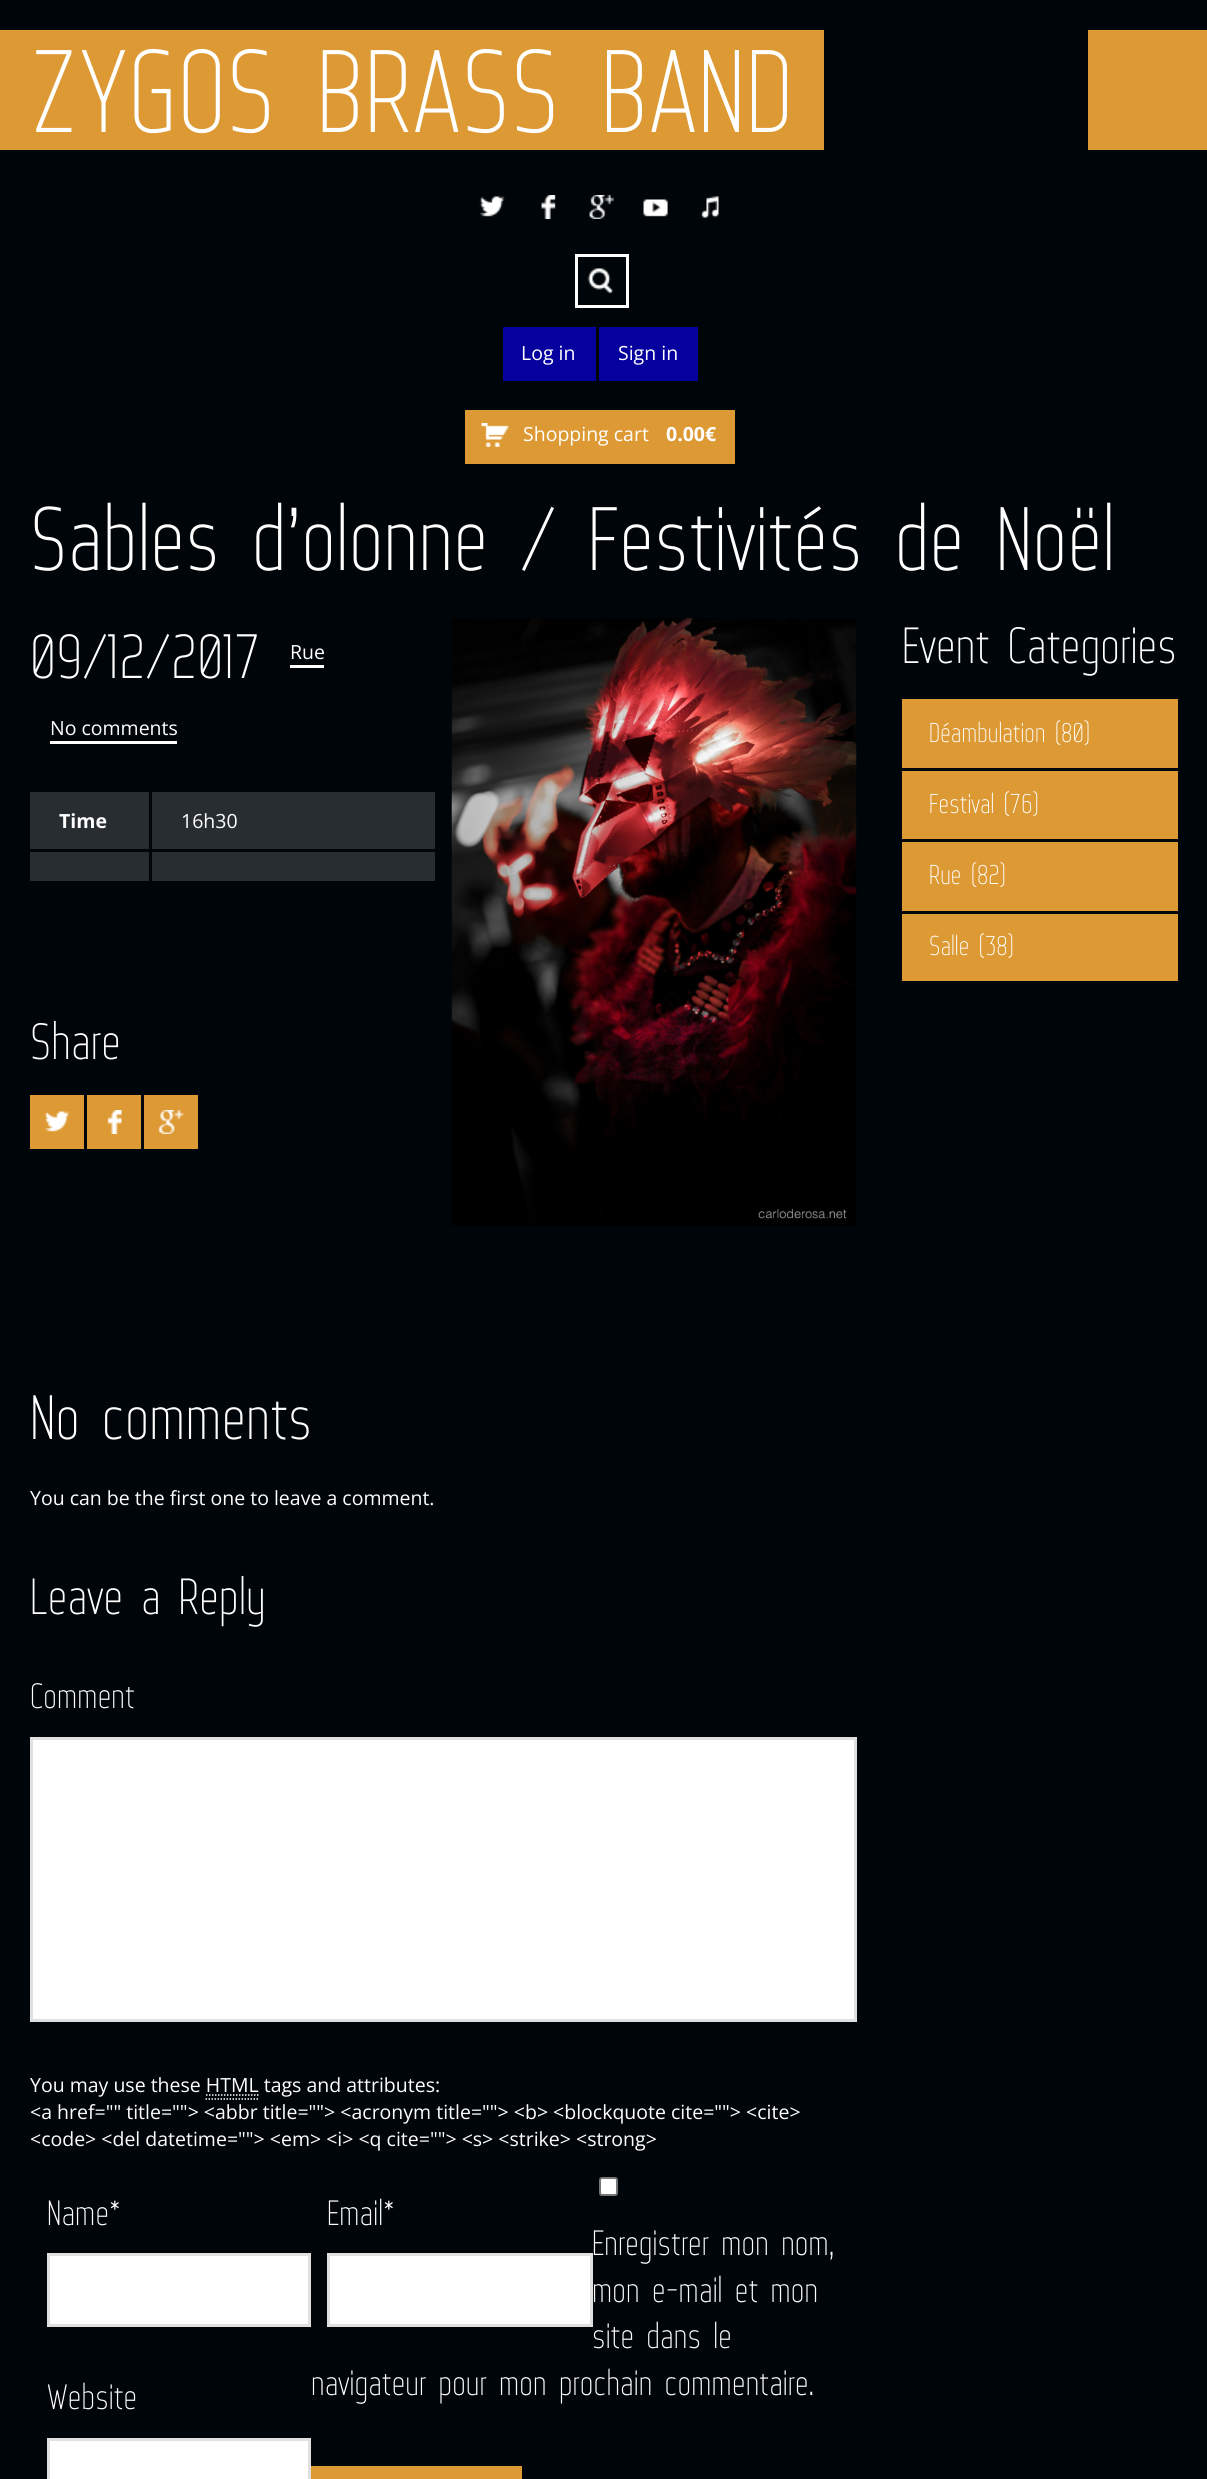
#include <cairo.h>
#include <math.h>
#include <stddef.h>


static void round_rect(cairo_t *cr, double x, double y, double w, double h, double r) {
    cairo_new_sub_path(cr);
    cairo_arc(cr, x + w - r, y + h - r, r, 0, M_PI / 2);
    cairo_arc(cr, x + r, y + h - r, r, M_PI / 2, M_PI);
    cairo_arc(cr, x + r, y + r, r, M_PI, 1.5 * M_PI);
    cairo_arc(cr, x + w - r, y + r, r, 1.5 * M_PI, 2 * M_PI);
    cairo_close_path(cr);
}

static void picture(cairo_t *cr, const char *path, double x, double y, double w, double h) {
    cairo_surface_t *image = cairo_image_surface_create_from_png(path);
    cairo_save(cr);
    cairo_set_source_surface(cr, image, x, y);
    cairo_rectangle(cr, x, y, w, h);
    cairo_fill(cr);
    cairo_restore(cr);
    cairo_surface_destroy(image);
}

int main(void) {
    cairo_surface_t *surface = cairo_image_surface_create(CAIRO_FORMAT_RGB24, 1207, 2479);
    cairo_t *cr = cairo_create(surface);
    cairo_font_options_t *options = cairo_font_options_create();
    cairo_font_options_set_hint_metrics(options, CAIRO_HINT_METRICS_OFF);
    cairo_font_options_set_hint_style(options, CAIRO_HINT_STYLE_NONE);
    cairo_set_font_options(cr, options);
    cairo_set_miter_limit(cr, 4);
    cairo_set_source_rgb(cr, 0, 0.02, 0.039);
    cairo_paint(cr);
    cairo_set_source_rgb(cr, 0.867, 0.6, 0.2);
    cairo_rectangle(cr, 0, 30, 824, 120);
    cairo_fill(cr);
    cairo_select_font_face(cr, "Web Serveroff", CAIRO_FONT_SLANT_NORMAL, CAIRO_FONT_WEIGHT_NORMAL);
    cairo_set_font_size(cr, 117);
    cairo_set_source_rgb(cr, 1, 1, 1);
    cairo_move_to(cr, 30, 132);
    cairo_show_text(cr, "ZYGOS BRASS BAND");
    cairo_set_source_rgb(cr, 0.867, 0.6, 0.2);
    cairo_rectangle(cr, 1088, 30, 119, 120);
    cairo_fill(cr);
    picture(cr, "img1.png", 479, 196, 26, 21);
    picture(cr, "img2.png", 541, 195, 15, 24);
    picture(cr, "img3.png", 589, 195, 25, 24);
    picture(cr, "img4.png", 643, 199, 25, 18);
    picture(cr, "img5.png", 701, 196, 18, 22);
    picture(cr, "img6.png", 587, 267, 26, 27);
    cairo_rectangle(cr, 576.5, 255.5, 51, 51);
    cairo_set_source_rgb(cr, 1, 1, 1);
    cairo_set_line_width(cr, 3);
    cairo_stroke(cr);
    cairo_set_source_rgb(cr, 0.02, 0, 0.62);
    cairo_rectangle(cr, 503, 327, 93, 54);
    cairo_fill(cr);
    cairo_select_font_face(cr, "Open Sans", CAIRO_FONT_SLANT_NORMAL, CAIRO_FONT_WEIGHT_NORMAL);
    cairo_set_font_size(cr, 19.5);
    cairo_set_source_rgb(cr, 1, 1, 1);
    cairo_move_to(cr, 521, 360);
    cairo_show_text(cr, "Log in");
    cairo_set_source_rgb(cr, 0.02, 0, 0.62);
    cairo_rectangle(cr, 599, 327, 99, 54);
    cairo_fill(cr);
    cairo_set_source_rgb(cr, 1, 1, 1);
    cairo_move_to(cr, 618, 360);
    cairo_show_text(cr, "Sign in");
    cairo_set_source_rgb(cr, 0.867, 0.6, 0.2);
    cairo_rectangle(cr, 465, 410, 270, 54);
    cairo_fill(cr);
    picture(cr, "img7.png", 481, 423, 28, 24);
    cairo_set_source_rgb(cr, 1, 1, 1);
    cairo_move_to(cr, 523, 441);
    cairo_show_text(cr, "Shopping cart");
    cairo_select_font_face(cr, "Open Sans", CAIRO_FONT_SLANT_NORMAL, CAIRO_FONT_WEIGHT_BOLD);
    cairo_move_to(cr, 666, 441);
    cairo_show_text(cr, "0.00€");
    cairo_select_font_face(cr, "Web Serveroff", CAIRO_FONT_SLANT_NORMAL, CAIRO_FONT_WEIGHT_NORMAL);
    cairo_set_font_size(cr, 89.75);
    cairo_move_to(cr, 30, 570);
    cairo_show_text(cr, "Sables d’olonne / Festivités de Noël");
    cairo_set_font_size(cr, 62.5);
    cairo_move_to(cr, 30, 678);
    cairo_show_text(cr, "09/12/2017");
    cairo_select_font_face(cr, "Open Sans", CAIRO_FONT_SLANT_NORMAL, CAIRO_FONT_WEIGHT_NORMAL);
    cairo_set_font_size(cr, 19.5);
    cairo_move_to(cr, 290, 659);
    cairo_show_text(cr, "Rue");
    cairo_rectangle(cr, 290, 665, 34, 3);
    cairo_fill(cr);
    cairo_move_to(cr, 50, 735);
    cairo_show_text(cr, "No comments");
    cairo_rectangle(cr, 50, 741, 127, 3);
    cairo_fill(cr);
    cairo_set_source_rgb(cr, 0.157, 0.176, 0.196);
    cairo_rectangle(cr, 30, 792, 119, 57);
    cairo_fill(cr);
    cairo_select_font_face(cr, "Open Sans", CAIRO_FONT_SLANT_NORMAL, CAIRO_FONT_WEIGHT_BOLD);
    cairo_set_source_rgb(cr, 1, 1, 1);
    cairo_move_to(cr, 59, 828);
    cairo_show_text(cr, "Time");
    cairo_set_source_rgb(cr, 0.157, 0.176, 0.196);
    cairo_rectangle(cr, 152, 792, 283, 57);
    cairo_fill(cr);
    cairo_select_font_face(cr, "Open Sans", CAIRO_FONT_SLANT_NORMAL, CAIRO_FONT_WEIGHT_NORMAL);
    cairo_set_source_rgb(cr, 1, 1, 1);
    cairo_move_to(cr, 181, 828);
    cairo_show_text(cr, "16h30");
    cairo_set_source_rgb(cr, 0.157, 0.176, 0.196);
    cairo_rectangle(cr, 30, 852, 119, 29);
    cairo_fill(cr);
    cairo_rectangle(cr, 152, 852, 283, 29);
    cairo_fill(cr);
    cairo_select_font_face(cr, "Web Serveroff", CAIRO_FONT_SLANT_NORMAL, CAIRO_FONT_WEIGHT_NORMAL);
    cairo_set_font_size(cr, 50.75);
    cairo_set_source_rgb(cr, 1, 1, 1);
    cairo_move_to(cr, 30, 1059);
    cairo_show_text(cr, "Share");
    cairo_set_source_rgb(cr, 0.867, 0.6, 0.2);
    cairo_rectangle(cr, 30, 1095, 54, 54);
    cairo_fill(cr);
    picture(cr, "img8.png", 44, 1111, 26, 21);
    cairo_rectangle(cr, 87, 1095, 54, 54);
    cairo_fill(cr);
    picture(cr, "img9.png", 107, 1110, 15, 24);
    cairo_rectangle(cr, 144, 1095, 54, 54);
    cairo_fill(cr);
    picture(cr, "img10.png", 158, 1110, 26, 24);
    picture(cr, "img11.png", 451, 618, 406, 608);
    cairo_set_font_size(cr, 62.5);
    cairo_set_source_rgb(cr, 1, 1, 1);
    cairo_move_to(cr, 30, 1439);
    cairo_show_text(cr, "No comments");
    cairo_select_font_face(cr, "Open Sans", CAIRO_FONT_SLANT_NORMAL, CAIRO_FONT_WEIGHT_NORMAL);
    cairo_set_font_size(cr, 19.5);
    cairo_move_to(cr, 30, 1505);
    cairo_show_text(cr, "You can be the first one to leave a comment.");
    cairo_select_font_face(cr, "Web Serveroff", CAIRO_FONT_SLANT_NORMAL, CAIRO_FONT_WEIGHT_NORMAL);
    cairo_set_font_size(cr, 50.75);
    cairo_move_to(cr, 30, 1614);
    cairo_show_text(cr, "Leave a Reply");
    cairo_set_font_size(cr, 35.1);
    cairo_move_to(cr, 30, 1708);
    cairo_show_text(cr, "Comment");
    cairo_rectangle(cr, 31.5, 1738.5, 824, 282);
    cairo_fill_preserve(cr);
    cairo_set_source_rgb(cr, 0.878, 0.878, 0.878);
    cairo_stroke(cr);
    cairo_select_font_face(cr, "Open Sans", CAIRO_FONT_SLANT_NORMAL, CAIRO_FONT_WEIGHT_NORMAL);
    cairo_set_font_size(cr, 19.5);
    cairo_set_source_rgb(cr, 1, 1, 1);
    cairo_move_to(cr, 30, 2092);
    cairo_show_text(cr, "You may use these HTML tags and attributes:");
    cairo_new_path(cr);
    cairo_move_to(cr, 205.5, 2099);
    cairo_line_to(cr, 258, 2099);
    cairo_move_to(cr, 206, 2095);
    cairo_line_to(cr, 258.5, 2095);
    cairo_set_line_width(cr, 1.5);
    cairo_set_dash(cr, (double[]){1.5, 1.5}, 2, 0);
    cairo_stroke(cr);
    cairo_move_to(cr, 30, 2119);
    cairo_show_text(cr, "<a href=\"\" title=\"\"> <abbr title=\"\"> <acronym title=\"\"> <b> <blockquote cite=\"\"> <cite>");
    cairo_move_to(cr, 30, 2146);
    cairo_show_text(cr, "<code> <del datetime=\"\"> <em> <i> <q cite=\"\"> <s> <strike> <strong>");
    cairo_select_font_face(cr, "Web Serveroff", CAIRO_FONT_SLANT_NORMAL, CAIRO_FONT_WEIGHT_NORMAL);
    cairo_set_font_size(cr, 35.1);
    cairo_move_to(cr, 47, 2225);
    cairo_show_text(cr, "Name*");
    cairo_rectangle(cr, 48.5, 2254.5, 261, 71);
    cairo_fill_preserve(cr);
    cairo_set_source_rgb(cr, 0.878, 0.878, 0.878);
    cairo_set_line_width(cr, 3);
    cairo_set_dash(cr, NULL, 0, 0);
    cairo_stroke(cr);
    cairo_set_source_rgb(cr, 1, 1, 1);
    cairo_move_to(cr, 327, 2225);
    cairo_show_text(cr, "Email*");
    cairo_rectangle(cr, 328.5, 2254.5, 263, 71);
    cairo_fill_preserve(cr);
    cairo_set_source_rgb(cr, 0.878, 0.878, 0.878);
    cairo_stroke(cr);
    cairo_set_source_rgb(cr, 1, 1, 1);
    cairo_move_to(cr, 47, 2409);
    cairo_show_text(cr, "Website");
    cairo_rectangle(cr, 48.5, 2439.5, 261, 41);
    cairo_fill_preserve(cr);
    cairo_set_source_rgb(cr, 0.878, 0.878, 0.878);
    cairo_stroke(cr);
    cairo_set_source_rgb(cr, 1, 1, 1);
    round_rect(cr, 600, 2178, 17, 17, 2);
    cairo_fill_preserve(cr);
    cairo_set_source_rgb(cr, 0.463, 0.463, 0.463);
    cairo_set_line_width(cr, 2);
    cairo_stroke(cr);
    cairo_set_source_rgb(cr, 1, 1, 1);
    cairo_move_to(cr, 592, 2255);
    cairo_show_text(cr, "Enregistrer mon nom,");
    cairo_move_to(cr, 592, 2302);
    cairo_show_text(cr, "mon e-mail et mon");
    cairo_move_to(cr, 592, 2348);
    cairo_show_text(cr, "site dans le");
    cairo_move_to(cr, 311, 2395);
    cairo_show_text(cr, "navigateur pour mon prochain commentaire.");
    cairo_set_source_rgb(cr, 0.867, 0.6, 0.2);
    cairo_rectangle(cr, 311, 2466, 211, 13);
    cairo_fill(cr);
    cairo_set_font_size(cr, 50.75);
    cairo_set_source_rgb(cr, 1, 1, 1);
    cairo_move_to(cr, 902, 663);
    cairo_show_text(cr, "Event Categories");
    cairo_set_source_rgb(cr, 0.867, 0.6, 0.2);
    cairo_rectangle(cr, 902, 699, 276, 69);
    cairo_fill(cr);
    cairo_set_font_size(cr, 27.25);
    cairo_set_source_rgb(cr, 1, 1, 1);
    cairo_move_to(cr, 929, 742);
    cairo_show_text(cr, "Déambulation (80)");
    cairo_set_source_rgb(cr, 0.867, 0.6, 0.2);
    cairo_rectangle(cr, 902, 771, 276, 68);
    cairo_fill(cr);
    cairo_set_source_rgb(cr, 1, 1, 1);
    cairo_move_to(cr, 929, 813);
    cairo_show_text(cr, "Festival (76)");
    cairo_set_source_rgb(cr, 0.867, 0.6, 0.2);
    cairo_rectangle(cr, 902, 842, 276, 69);
    cairo_fill(cr);
    cairo_set_source_rgb(cr, 1, 1, 1);
    cairo_move_to(cr, 929, 884);
    cairo_show_text(cr, "Rue (82)");
    cairo_set_source_rgb(cr, 0.867, 0.6, 0.2);
    cairo_rectangle(cr, 902, 914, 276, 67);
    cairo_fill(cr);
    cairo_set_source_rgb(cr, 1, 1, 1);
    cairo_move_to(cr, 929, 955);
    cairo_show_text(cr, "Salle (38)");
    cairo_surface_write_to_png(surface, "page.png");
    cairo_font_options_destroy(options);
    cairo_destroy(cr);
    cairo_surface_destroy(surface);
    return 0;
}
